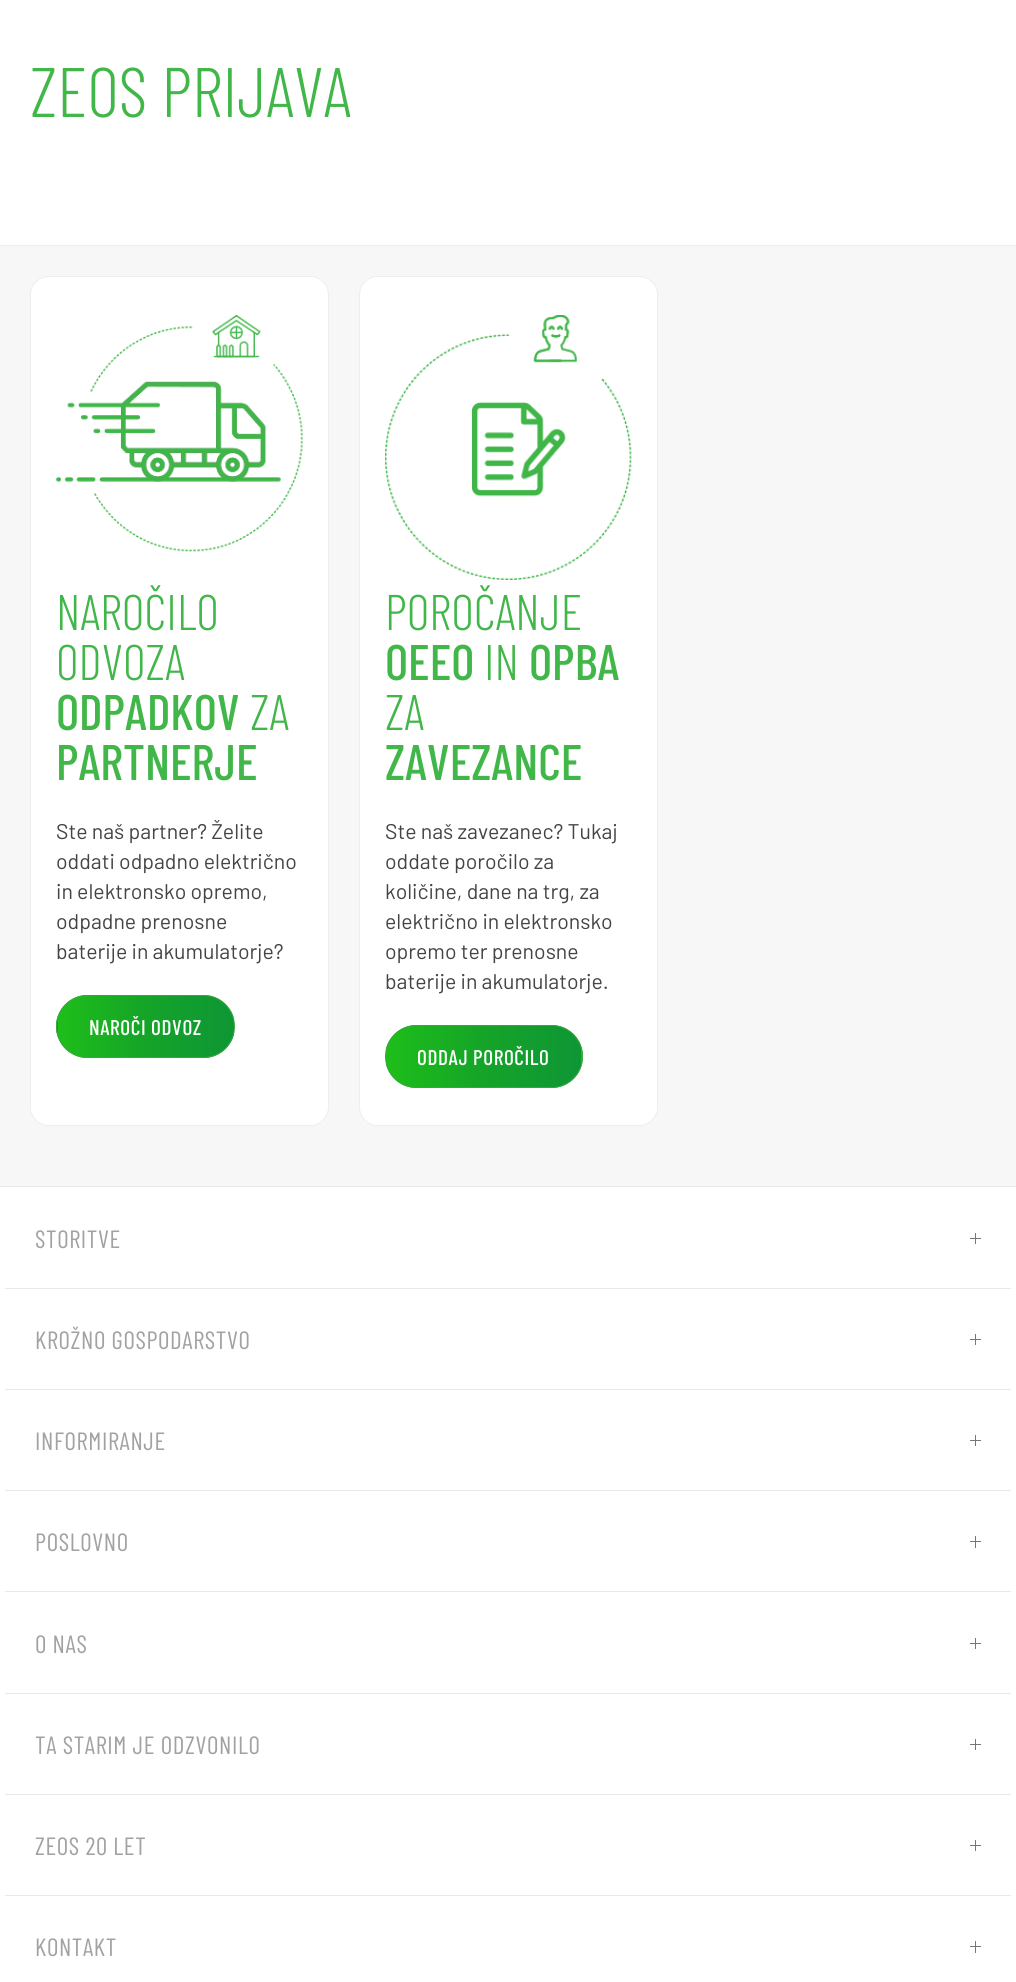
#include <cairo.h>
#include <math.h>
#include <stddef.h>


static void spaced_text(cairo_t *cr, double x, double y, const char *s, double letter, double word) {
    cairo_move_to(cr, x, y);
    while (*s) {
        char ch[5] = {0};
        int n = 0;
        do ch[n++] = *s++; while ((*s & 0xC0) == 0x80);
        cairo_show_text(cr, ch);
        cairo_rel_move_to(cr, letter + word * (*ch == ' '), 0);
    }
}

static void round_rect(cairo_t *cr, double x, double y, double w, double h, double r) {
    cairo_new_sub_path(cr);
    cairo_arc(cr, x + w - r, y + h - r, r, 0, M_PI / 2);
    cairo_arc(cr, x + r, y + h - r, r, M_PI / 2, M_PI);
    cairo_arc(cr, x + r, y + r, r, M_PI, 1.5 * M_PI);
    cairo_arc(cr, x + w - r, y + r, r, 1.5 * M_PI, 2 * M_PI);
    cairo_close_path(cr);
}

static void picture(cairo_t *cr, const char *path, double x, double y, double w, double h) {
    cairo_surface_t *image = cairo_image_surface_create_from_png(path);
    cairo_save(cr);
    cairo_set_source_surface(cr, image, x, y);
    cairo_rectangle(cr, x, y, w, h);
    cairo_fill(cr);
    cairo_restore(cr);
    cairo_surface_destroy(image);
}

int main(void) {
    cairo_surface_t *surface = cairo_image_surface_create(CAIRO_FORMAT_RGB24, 1016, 1982);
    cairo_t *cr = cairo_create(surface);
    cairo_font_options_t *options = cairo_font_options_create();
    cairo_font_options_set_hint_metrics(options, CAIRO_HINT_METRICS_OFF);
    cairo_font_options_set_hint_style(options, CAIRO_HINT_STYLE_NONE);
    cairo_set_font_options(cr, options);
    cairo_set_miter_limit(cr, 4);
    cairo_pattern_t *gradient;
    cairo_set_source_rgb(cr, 0.965, 0.965, 0.965);
    cairo_paint(cr);
    cairo_set_source_rgb(cr, 1, 1, 1);
    cairo_rectangle(cr, 0, 0, 1016, 245);
    cairo_fill(cr);
    cairo_set_source_rgb(cr, 0.933, 0.933, 0.933);
    cairo_rectangle(cr, 0, 245, 1016, 1);
    cairo_fill(cr);
    cairo_select_font_face(cr, "Barlow Condensed Light", CAIRO_FONT_SLANT_NORMAL, CAIRO_FONT_WEIGHT_NORMAL);
    cairo_set_font_size(cr, 70);
    cairo_set_source_rgb(cr, 0.255, 0.714, 0.286);
    cairo_move_to(cr, 30, 117);
    cairo_show_text(cr, "ZEOS PRIJAVA");
    cairo_set_source_rgb(cr, 1, 1, 1);
    round_rect(cr, 30.5, 276.5, 298, 849, 18.5);
    cairo_fill_preserve(cr);
    cairo_set_source_rgb(cr, 0.933, 0.933, 0.933);
    cairo_set_line_width(cr, 1);
    cairo_stroke(cr);
    picture(cr, "img1.png", 56, 315, 247, 237);
    cairo_set_font_size(cr, 50);
    cairo_set_source_rgb(cr, 0.255, 0.714, 0.286);
    cairo_move_to(cr, 56, 630);
    cairo_show_text(cr, "NAROČILO");
    cairo_move_to(cr, 56, 680);
    cairo_show_text(cr, "ODVOZA");
    cairo_select_font_face(cr, "Barlow Condensed Medium", CAIRO_FONT_SLANT_NORMAL, CAIRO_FONT_WEIGHT_NORMAL);
    cairo_move_to(cr, 56, 730);
    cairo_show_text(cr, "ODPADKOV");
    cairo_select_font_face(cr, "Barlow Condensed Light", CAIRO_FONT_SLANT_NORMAL, CAIRO_FONT_WEIGHT_NORMAL);
    cairo_move_to(cr, 250, 730);
    cairo_show_text(cr, "ZA");
    cairo_select_font_face(cr, "Barlow Condensed Medium", CAIRO_FONT_SLANT_NORMAL, CAIRO_FONT_WEIGHT_NORMAL);
    cairo_move_to(cr, 56, 780);
    cairo_show_text(cr, "PARTNERJE");
    cairo_select_font_face(cr, "Barlow", CAIRO_FONT_SLANT_NORMAL, CAIRO_FONT_WEIGHT_NORMAL);
    cairo_set_font_size(cr, 21.25);
    cairo_set_source_rgb(cr, 0.267, 0.267, 0.267);
    cairo_move_to(cr, 56, 839);
    cairo_show_text(cr, "Ste naš partner? Želite");
    cairo_move_to(cr, 56, 869);
    cairo_show_text(cr, "oddati odpadno električno");
    cairo_move_to(cr, 56, 899);
    cairo_show_text(cr, "in elektronsko opremo,");
    cairo_move_to(cr, 56, 929);
    cairo_show_text(cr, "odpadne prenosne");
    cairo_move_to(cr, 56, 959);
    cairo_show_text(cr, "baterije in akumulatorje?");
    cairo_save(cr);
    round_rect(cr, 56, 995, 179, 63, 31.5);
    cairo_clip(cr);
    gradient = cairo_pattern_create_linear(-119, 1026, 58, 1026);
    cairo_pattern_add_color_stop_rgba(gradient, 0, 0.118, 0.745, 0.102, 1);
    cairo_pattern_add_color_stop_rgba(gradient, 0.5, 0.082, 0.643, 0.157, 1);
    cairo_pattern_add_color_stop_rgba(gradient, 1, 0.055, 0.588, 0.208, 1);
    cairo_set_source(cr, gradient);
    cairo_pattern_destroy(gradient);
    cairo_rectangle(cr, 56, 1015, 2, 23);
    cairo_fill(cr);
    gradient = cairo_pattern_create_linear(58, 1026, 234, 1026);
    cairo_pattern_add_color_stop_rgba(gradient, 0, 0.118, 0.745, 0.102, 1);
    cairo_pattern_add_color_stop_rgba(gradient, 0.5, 0.082, 0.643, 0.157, 1);
    cairo_pattern_add_color_stop_rgba(gradient, 1, 0.055, 0.588, 0.208, 1);
    cairo_set_source(cr, gradient);
    cairo_pattern_destroy(gradient);
    cairo_rectangle(cr, 58, 995, 176, 63);
    cairo_fill(cr);
    cairo_restore(cr);
    round_rect(cr, 56.5, 995.5, 178, 62, 31);
    cairo_set_source_rgb(cr, 0.22, 0.655, 0.251);
    cairo_stroke(cr);
    cairo_select_font_face(cr, "Barlow Condensed Medium", CAIRO_FONT_SLANT_NORMAL, CAIRO_FONT_WEIGHT_NORMAL);
    cairo_set_source_rgb(cr, 1, 1, 1);
    spaced_text(cr, 89, 1035, "NAROČI ODVOZ", 0.6, 0);
    round_rect(cr, 359.5, 276.5, 298, 849, 18.5);
    cairo_fill_preserve(cr);
    cairo_set_source_rgb(cr, 0.933, 0.933, 0.933);
    cairo_stroke(cr);
    picture(cr, "img2.png", 385, 315, 247, 265);
    cairo_select_font_face(cr, "Barlow Condensed Light", CAIRO_FONT_SLANT_NORMAL, CAIRO_FONT_WEIGHT_NORMAL);
    cairo_set_font_size(cr, 50);
    cairo_set_source_rgb(cr, 0.255, 0.714, 0.286);
    cairo_move_to(cr, 385, 630);
    cairo_show_text(cr, "POROČANJE");
    cairo_select_font_face(cr, "Barlow Condensed Medium", CAIRO_FONT_SLANT_NORMAL, CAIRO_FONT_WEIGHT_NORMAL);
    cairo_move_to(cr, 385, 680);
    cairo_show_text(cr, "OEEO");
    cairo_select_font_face(cr, "Barlow Condensed Light", CAIRO_FONT_SLANT_NORMAL, CAIRO_FONT_WEIGHT_NORMAL);
    cairo_move_to(cr, 484, 680);
    cairo_show_text(cr, "IN");
    cairo_select_font_face(cr, "Barlow Condensed Medium", CAIRO_FONT_SLANT_NORMAL, CAIRO_FONT_WEIGHT_NORMAL);
    cairo_move_to(cr, 529, 680);
    cairo_show_text(cr, "OPBA");
    cairo_select_font_face(cr, "Barlow Condensed Light", CAIRO_FONT_SLANT_NORMAL, CAIRO_FONT_WEIGHT_NORMAL);
    cairo_move_to(cr, 385, 730);
    cairo_show_text(cr, "ZA");
    cairo_select_font_face(cr, "Barlow Condensed Medium", CAIRO_FONT_SLANT_NORMAL, CAIRO_FONT_WEIGHT_NORMAL);
    cairo_move_to(cr, 385, 780);
    cairo_show_text(cr, "ZAVEZANCE");
    cairo_select_font_face(cr, "Barlow", CAIRO_FONT_SLANT_NORMAL, CAIRO_FONT_WEIGHT_NORMAL);
    cairo_set_font_size(cr, 21.25);
    cairo_set_source_rgb(cr, 0.267, 0.267, 0.267);
    cairo_move_to(cr, 385, 839);
    cairo_show_text(cr, "Ste naš zavezanec? Tukaj");
    cairo_move_to(cr, 385, 869);
    cairo_show_text(cr, "oddate poročilo za");
    cairo_move_to(cr, 385, 899);
    cairo_show_text(cr, "količine, dane na trg, za");
    cairo_move_to(cr, 385, 929);
    cairo_show_text(cr, "električno in elektronsko");
    cairo_move_to(cr, 385, 959);
    cairo_show_text(cr, "opremo ter prenosne");
    cairo_move_to(cr, 385, 989);
    cairo_show_text(cr, "baterije in akumulatorje.");
    cairo_save(cr);
    round_rect(cr, 385, 1025, 198, 63, 31.5);
    cairo_clip(cr);
    gradient = cairo_pattern_create_linear(386, 1056, 581, 1056);
    cairo_pattern_add_color_stop_rgba(gradient, 0, 0.118, 0.745, 0.102, 1);
    cairo_pattern_add_color_stop_rgba(gradient, 0.5, 0.082, 0.643, 0.157, 1);
    cairo_pattern_add_color_stop_rgba(gradient, 1, 0.055, 0.588, 0.208, 1);
    cairo_set_source(cr, gradient);
    cairo_pattern_destroy(gradient);
    cairo_rectangle(cr, 386, 1025, 195, 63);
    cairo_fill(cr);
    gradient = cairo_pattern_create_linear(581, 1056, 776, 1056);
    cairo_pattern_add_color_stop_rgba(gradient, 0, 0.118, 0.745, 0.102, 1);
    cairo_pattern_add_color_stop_rgba(gradient, 0.5, 0.082, 0.643, 0.157, 1);
    cairo_pattern_add_color_stop_rgba(gradient, 1, 0.055, 0.588, 0.208, 1);
    cairo_set_source(cr, gradient);
    cairo_pattern_destroy(gradient);
    cairo_rectangle(cr, 581, 1045, 2, 23);
    cairo_fill(cr);
    cairo_restore(cr);
    round_rect(cr, 385.5, 1025.5, 197, 62, 31);
    cairo_set_source_rgb(cr, 0.22, 0.655, 0.251);
    cairo_stroke(cr);
    cairo_select_font_face(cr, "Barlow Condensed Medium", CAIRO_FONT_SLANT_NORMAL, CAIRO_FONT_WEIGHT_NORMAL);
    cairo_set_source_rgb(cr, 1, 1, 1);
    spaced_text(cr, 417, 1065, "ODDAJ POROČILO", 0.6, 0);
    cairo_rectangle(cr, 0, 1187, 1016, 795);
    cairo_fill(cr);
    cairo_set_source_rgb(cr, 0.914, 0.914, 0.914);
    cairo_rectangle(cr, 0, 1186, 1016, 1);
    cairo_fill(cr);
    cairo_rectangle(cr, 5, 1288, 1006, 1);
    cairo_fill(cr);
    cairo_select_font_face(cr, "Barlow Condensed", CAIRO_FONT_SLANT_NORMAL, CAIRO_FONT_WEIGHT_NORMAL);
    cairo_set_font_size(cr, 25);
    cairo_set_source_rgb(cr, 0.635, 0.635, 0.635);
    spaced_text(cr, 35, 1248, "STORITVE", 0.6, 0);
    cairo_set_source_rgb(cr, 0.467, 0.467, 0.467);
    cairo_rectangle(cr, 970, 1238, 11, 1);
    cairo_fill(cr);
    cairo_rectangle(cr, 975, 1233, 1, 11);
    cairo_fill(cr);
    cairo_set_source_rgb(cr, 0.914, 0.914, 0.914);
    cairo_rectangle(cr, 5, 1389, 1006, 1);
    cairo_fill(cr);
    cairo_set_source_rgb(cr, 0.635, 0.635, 0.635);
    spaced_text(cr, 35, 1349, "KROŽNO GOSPODARSTVO", 0.6, 0);
    cairo_set_source_rgb(cr, 0.467, 0.467, 0.467);
    cairo_rectangle(cr, 970, 1339, 11, 1);
    cairo_fill(cr);
    cairo_rectangle(cr, 975, 1334, 1, 11);
    cairo_fill(cr);
    cairo_set_source_rgb(cr, 0.914, 0.914, 0.914);
    cairo_rectangle(cr, 5, 1490, 1006, 1);
    cairo_fill(cr);
    cairo_set_source_rgb(cr, 0.635, 0.635, 0.635);
    spaced_text(cr, 35, 1450, "INFORMIRANJE", 0.6, 0);
    cairo_set_source_rgb(cr, 0.467, 0.467, 0.467);
    cairo_rectangle(cr, 970, 1440, 11, 1);
    cairo_fill(cr);
    cairo_rectangle(cr, 975, 1435, 1, 11);
    cairo_fill(cr);
    cairo_set_source_rgb(cr, 0.914, 0.914, 0.914);
    cairo_rectangle(cr, 5, 1591, 1006, 1);
    cairo_fill(cr);
    cairo_set_source_rgb(cr, 0.635, 0.635, 0.635);
    spaced_text(cr, 35, 1551, "POSLOVNO", 0.6, 0);
    cairo_set_source_rgb(cr, 0.467, 0.467, 0.467);
    cairo_rectangle(cr, 970, 1541, 11, 1);
    cairo_fill(cr);
    cairo_rectangle(cr, 975, 1536, 1, 12);
    cairo_fill(cr);
    cairo_set_source_rgb(cr, 0.914, 0.914, 0.914);
    cairo_rectangle(cr, 5, 1693, 1006, 1);
    cairo_fill(cr);
    cairo_set_source_rgb(cr, 0.635, 0.635, 0.635);
    spaced_text(cr, 35, 1653, "O NAS", 0.6, 0);
    cairo_set_source_rgb(cr, 0.467, 0.467, 0.467);
    cairo_rectangle(cr, 970, 1643, 11, 1);
    cairo_fill(cr);
    cairo_rectangle(cr, 975, 1638, 1, 11);
    cairo_fill(cr);
    cairo_set_source_rgb(cr, 0.914, 0.914, 0.914);
    cairo_rectangle(cr, 5, 1794, 1006, 1);
    cairo_fill(cr);
    cairo_set_source_rgb(cr, 0.635, 0.635, 0.635);
    spaced_text(cr, 35, 1754, "TA STARIM JE ODZVONILO", 0.6, 0);
    cairo_set_source_rgb(cr, 0.467, 0.467, 0.467);
    cairo_rectangle(cr, 970, 1744, 11, 1);
    cairo_fill(cr);
    cairo_rectangle(cr, 975, 1739, 1, 11);
    cairo_fill(cr);
    cairo_set_source_rgb(cr, 0.914, 0.914, 0.914);
    cairo_rectangle(cr, 5, 1895, 1006, 1);
    cairo_fill(cr);
    cairo_set_source_rgb(cr, 0.635, 0.635, 0.635);
    spaced_text(cr, 35, 1855, "ZEOS 20 LET", 0.6, 0);
    cairo_set_source_rgb(cr, 0.467, 0.467, 0.467);
    cairo_rectangle(cr, 970, 1845, 11, 1);
    cairo_fill(cr);
    cairo_rectangle(cr, 975, 1840, 1, 11);
    cairo_fill(cr);
    cairo_set_source_rgb(cr, 0.635, 0.635, 0.635);
    spaced_text(cr, 35, 1956, "KONTAKT", 0.6, 0);
    cairo_set_source_rgb(cr, 0.467, 0.467, 0.467);
    cairo_rectangle(cr, 970, 1946, 11, 1);
    cairo_fill(cr);
    cairo_rectangle(cr, 975, 1941, 1, 12);
    cairo_fill(cr);
    cairo_surface_write_to_png(surface, "page.png");
    cairo_font_options_destroy(options);
    cairo_destroy(cr);
    cairo_surface_destroy(surface);
    return 0;
}
